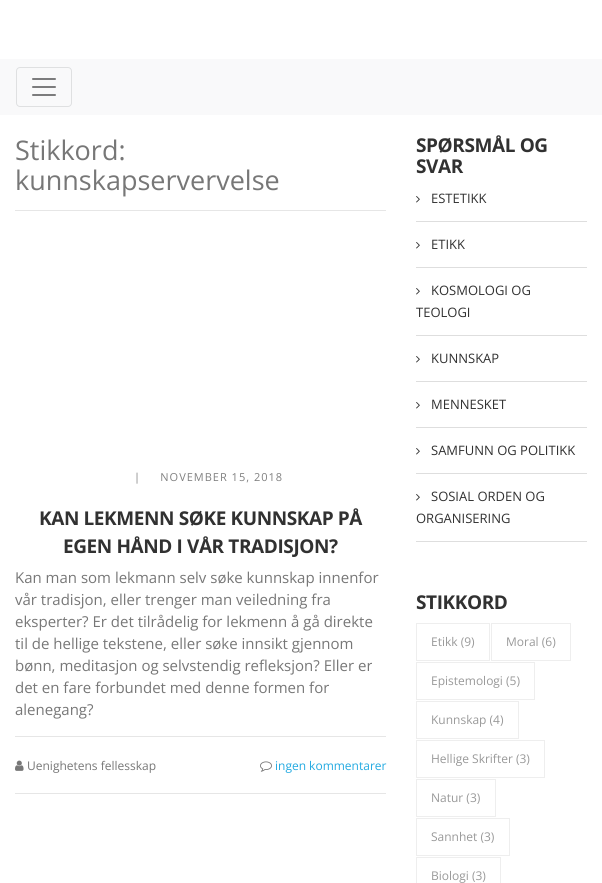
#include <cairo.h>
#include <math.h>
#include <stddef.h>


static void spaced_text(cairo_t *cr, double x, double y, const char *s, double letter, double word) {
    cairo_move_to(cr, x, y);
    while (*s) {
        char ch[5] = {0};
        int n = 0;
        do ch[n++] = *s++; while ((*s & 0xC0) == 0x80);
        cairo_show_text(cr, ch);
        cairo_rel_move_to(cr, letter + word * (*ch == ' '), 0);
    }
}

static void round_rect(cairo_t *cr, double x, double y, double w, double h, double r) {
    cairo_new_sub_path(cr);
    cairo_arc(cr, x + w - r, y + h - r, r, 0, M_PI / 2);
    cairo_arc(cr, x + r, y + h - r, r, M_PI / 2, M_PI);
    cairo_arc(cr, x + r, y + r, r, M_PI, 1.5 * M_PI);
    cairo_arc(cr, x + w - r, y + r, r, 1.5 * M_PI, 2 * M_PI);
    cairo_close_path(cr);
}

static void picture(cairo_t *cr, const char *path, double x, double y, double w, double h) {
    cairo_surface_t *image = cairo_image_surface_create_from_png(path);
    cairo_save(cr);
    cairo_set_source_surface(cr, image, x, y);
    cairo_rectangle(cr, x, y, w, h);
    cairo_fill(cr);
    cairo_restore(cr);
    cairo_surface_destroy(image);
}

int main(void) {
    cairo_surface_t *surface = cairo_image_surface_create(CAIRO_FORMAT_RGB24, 602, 883);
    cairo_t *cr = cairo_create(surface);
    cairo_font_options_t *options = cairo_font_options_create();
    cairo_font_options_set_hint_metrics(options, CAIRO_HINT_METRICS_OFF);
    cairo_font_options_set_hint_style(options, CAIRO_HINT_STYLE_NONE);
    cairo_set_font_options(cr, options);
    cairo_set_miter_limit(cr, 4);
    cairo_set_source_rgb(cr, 1, 1, 1);
    cairo_paint(cr);
    cairo_set_source_rgb(cr, 0.973, 0.976, 0.98);
    cairo_rectangle(cr, 0, 59, 602, 56);
    cairo_fill(cr);
    round_rect(cr, 16.5, 67.5, 55, 39, 3.5);
    cairo_set_source_rgb(cr, 0.875, 0.878, 0.882);
    cairo_set_line_width(cr, 1);
    cairo_stroke(cr);
    picture(cr, "img1.png", 32, 78, 24, 18);
    cairo_select_font_face(cr, "Open Sans", CAIRO_FONT_SLANT_NORMAL, CAIRO_FONT_WEIGHT_NORMAL);
    cairo_set_font_size(cr, 27);
    cairo_set_source_rgb(cr, 0.467, 0.467, 0.467);
    cairo_move_to(cr, 15, 160);
    cairo_show_text(cr, "Stikkord:");
    cairo_move_to(cr, 15, 190);
    cairo_show_text(cr, "kunnskapservervelse");
    cairo_set_source_rgb(cr, 0.902, 0.902, 0.902);
    cairo_rectangle(cr, 15, 210, 371, 1);
    cairo_fill(cr);
    cairo_set_font_size(cr, 11);
    cairo_set_source_rgb(cr, 0.502, 0.502, 0.502);
    spaced_text(cr, 134, 481, "|     NOVEMBER 15, 2018", 1, 0);
    cairo_select_font_face(cr, "Open Sans", CAIRO_FONT_SLANT_NORMAL, CAIRO_FONT_WEIGHT_BOLD);
    cairo_set_font_size(cr, 19);
    cairo_set_source_rgb(cr, 0.192, 0.192, 0.192);
    spaced_text(cr, 39, 525, "KAN LEKMENN SØKE KUNNSKAP PÅ", -0.4, 0);
    spaced_text(cr, 63, 553, "EGEN HÅND I VÅR TRADISJON?", -0.4, 0);
    cairo_select_font_face(cr, "Open Sans", CAIRO_FONT_SLANT_NORMAL, CAIRO_FONT_WEIGHT_NORMAL);
    cairo_set_font_size(cr, 15);
    cairo_set_source_rgb(cr, 0.467, 0.467, 0.467);
    cairo_move_to(cr, 15, 583);
    cairo_show_text(cr, "Kan man som lekmann selv søke kunnskap innenfor");
    cairo_move_to(cr, 15, 605);
    cairo_show_text(cr, "vår tradisjon, eller trenger man veiledning fra");
    cairo_move_to(cr, 15, 627);
    cairo_show_text(cr, "eksperter? Er det tilrådelig for lekmenn å gå direkte");
    cairo_move_to(cr, 15, 649);
    cairo_show_text(cr, "til de hellige tekstene, eller søke innsikt gjennom");
    cairo_move_to(cr, 15, 671);
    cairo_show_text(cr, "bønn, meditasjon og selvstendig refleksjon? Eller er");
    cairo_move_to(cr, 15, 693);
    cairo_show_text(cr, "det en fare forbundet med denne formen for");
    cairo_move_to(cr, 15, 715);
    cairo_show_text(cr, "alenegang?");
    cairo_set_source_rgb(cr, 0.902, 0.902, 0.902);
    cairo_rectangle(cr, 15, 736, 371, 1);
    cairo_fill(cr);
    picture(cr, "img2.png", 15, 760, 9, 11);
    cairo_set_font_size(cr, 12);
    cairo_set_source_rgb(cr, 0.467, 0.467, 0.467);
    cairo_move_to(cr, 27, 770);
    cairo_show_text(cr, "Uenighetens fellesskap");
    picture(cr, "img3.png", 260, 761, 12, 11);
    cairo_set_source_rgb(cr, 0.137, 0.667, 0.882);
    cairo_move_to(cr, 275, 770);
    cairo_show_text(cr, "ingen kommentarer");
    cairo_set_source_rgb(cr, 0.902, 0.902, 0.902);
    cairo_rectangle(cr, 15, 793, 371, 1);
    cairo_fill(cr);
    cairo_select_font_face(cr, "Open Sans", CAIRO_FONT_SLANT_NORMAL, CAIRO_FONT_WEIGHT_BOLD);
    cairo_set_font_size(cr, 19);
    cairo_set_source_rgb(cr, 0.192, 0.192, 0.192);
    spaced_text(cr, 416, 152, "SPØRSMÅL OG", -0.4, 0);
    spaced_text(cr, 416, 173, "SVAR", -0.4, 0);
    cairo_set_source_rgb(cr, 0.871, 0.871, 0.871);
    cairo_rectangle(cr, 416, 221, 171, 1);
    cairo_fill(cr);
    picture(cr, "img4.png", 416, 196, 4, 7);
    cairo_select_font_face(cr, "Open Sans", CAIRO_FONT_SLANT_NORMAL, CAIRO_FONT_WEIGHT_NORMAL);
    cairo_set_font_size(cr, 13);
    cairo_set_source_rgb(cr, 0.192, 0.192, 0.192);
    cairo_move_to(cr, 431, 203);
    cairo_show_text(cr, "ESTETIKK");
    cairo_set_source_rgb(cr, 0.871, 0.871, 0.871);
    cairo_rectangle(cr, 416, 267, 171, 1);
    cairo_fill(cr);
    picture(cr, "img4.png", 416, 242, 4, 7);
    cairo_set_source_rgb(cr, 0.192, 0.192, 0.192);
    cairo_move_to(cr, 431, 249);
    cairo_show_text(cr, "ETIKK");
    cairo_set_source_rgb(cr, 0.871, 0.871, 0.871);
    cairo_rectangle(cr, 416, 335, 171, 1);
    cairo_fill(cr);
    picture(cr, "img4.png", 416, 288, 4, 7);
    cairo_set_source_rgb(cr, 0.192, 0.192, 0.192);
    cairo_move_to(cr, 431, 295);
    cairo_show_text(cr, "KOSMOLOGI OG");
    cairo_move_to(cr, 416, 317);
    cairo_show_text(cr, "TEOLOGI");
    cairo_set_source_rgb(cr, 0.871, 0.871, 0.871);
    cairo_rectangle(cr, 416, 381, 171, 1);
    cairo_fill(cr);
    picture(cr, "img4.png", 416, 356, 4, 7);
    cairo_set_source_rgb(cr, 0.192, 0.192, 0.192);
    cairo_move_to(cr, 431, 363);
    cairo_show_text(cr, "KUNNSKAP");
    cairo_set_source_rgb(cr, 0.871, 0.871, 0.871);
    cairo_rectangle(cr, 416, 427, 171, 1);
    cairo_fill(cr);
    picture(cr, "img4.png", 416, 402, 4, 7);
    cairo_set_source_rgb(cr, 0.192, 0.192, 0.192);
    cairo_move_to(cr, 431, 409);
    cairo_show_text(cr, "MENNESKET");
    cairo_set_source_rgb(cr, 0.871, 0.871, 0.871);
    cairo_rectangle(cr, 416, 473, 171, 1);
    cairo_fill(cr);
    picture(cr, "img4.png", 416, 448, 4, 7);
    cairo_set_source_rgb(cr, 0.192, 0.192, 0.192);
    cairo_move_to(cr, 431, 455);
    cairo_show_text(cr, "SAMFUNN OG POLITIKK");
    cairo_set_source_rgb(cr, 0.871, 0.871, 0.871);
    cairo_rectangle(cr, 416, 541, 171, 1);
    cairo_fill(cr);
    picture(cr, "img4.png", 416, 494, 4, 7);
    cairo_set_source_rgb(cr, 0.192, 0.192, 0.192);
    cairo_move_to(cr, 431, 501);
    cairo_show_text(cr, "SOSIAL ORDEN OG");
    cairo_move_to(cr, 416, 523);
    cairo_show_text(cr, "ORGANISERING");
    cairo_select_font_face(cr, "Open Sans", CAIRO_FONT_SLANT_NORMAL, CAIRO_FONT_WEIGHT_BOLD);
    cairo_set_font_size(cr, 19);
    spaced_text(cr, 416, 609, "STIKKORD", -0.4, 0);
    cairo_rectangle(cr, 416.5, 623.5, 73, 37);
    cairo_set_source_rgb(cr, 0.933, 0.933, 0.933);
    cairo_stroke(cr);
    cairo_select_font_face(cr, "Open Sans", CAIRO_FONT_SLANT_NORMAL, CAIRO_FONT_WEIGHT_NORMAL);
    cairo_set_font_size(cr, 12);
    cairo_set_source_rgb(cr, 0.6, 0.6, 0.6);
    cairo_move_to(cr, 431, 646);
    cairo_show_text(cr, "Etikk (9)");
    cairo_rectangle(cr, 491.5, 623.5, 79, 37);
    cairo_set_source_rgb(cr, 0.933, 0.933, 0.933);
    cairo_stroke(cr);
    cairo_set_source_rgb(cr, 0.6, 0.6, 0.6);
    cairo_move_to(cr, 506, 646);
    cairo_show_text(cr, "Moral (6)");
    cairo_rectangle(cr, 416.5, 662.5, 118, 37);
    cairo_set_source_rgb(cr, 0.933, 0.933, 0.933);
    cairo_stroke(cr);
    cairo_set_source_rgb(cr, 0.6, 0.6, 0.6);
    cairo_move_to(cr, 431, 685);
    cairo_show_text(cr, "Epistemologi (5)");
    cairo_rectangle(cr, 416.5, 701.5, 102, 37);
    cairo_set_source_rgb(cr, 0.933, 0.933, 0.933);
    cairo_stroke(cr);
    cairo_set_source_rgb(cr, 0.6, 0.6, 0.6);
    cairo_move_to(cr, 431, 724);
    cairo_show_text(cr, "Kunnskap (4)");
    cairo_rectangle(cr, 416.5, 740.5, 128, 37);
    cairo_set_source_rgb(cr, 0.933, 0.933, 0.933);
    cairo_stroke(cr);
    cairo_set_source_rgb(cr, 0.6, 0.6, 0.6);
    cairo_move_to(cr, 431, 763);
    cairo_show_text(cr, "Hellige Skrifter (3)");
    cairo_rectangle(cr, 416.5, 779.5, 79, 37);
    cairo_set_source_rgb(cr, 0.933, 0.933, 0.933);
    cairo_stroke(cr);
    cairo_set_source_rgb(cr, 0.6, 0.6, 0.6);
    cairo_move_to(cr, 431, 802);
    cairo_show_text(cr, "Natur (3)");
    cairo_rectangle(cr, 416.5, 818.5, 93, 37);
    cairo_set_source_rgb(cr, 0.933, 0.933, 0.933);
    cairo_stroke(cr);
    cairo_set_source_rgb(cr, 0.6, 0.6, 0.6);
    cairo_move_to(cr, 431, 841);
    cairo_show_text(cr, "Sannhet (3)");
    cairo_rectangle(cr, 416.5, 857.5, 84, 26);
    cairo_set_source_rgb(cr, 0.933, 0.933, 0.933);
    cairo_stroke(cr);
    cairo_set_source_rgb(cr, 0.6, 0.6, 0.6);
    cairo_move_to(cr, 431, 880);
    cairo_show_text(cr, "Biologi (3)");
    cairo_surface_write_to_png(surface, "page.png");
    cairo_font_options_destroy(options);
    cairo_destroy(cr);
    cairo_surface_destroy(surface);
    return 0;
}
